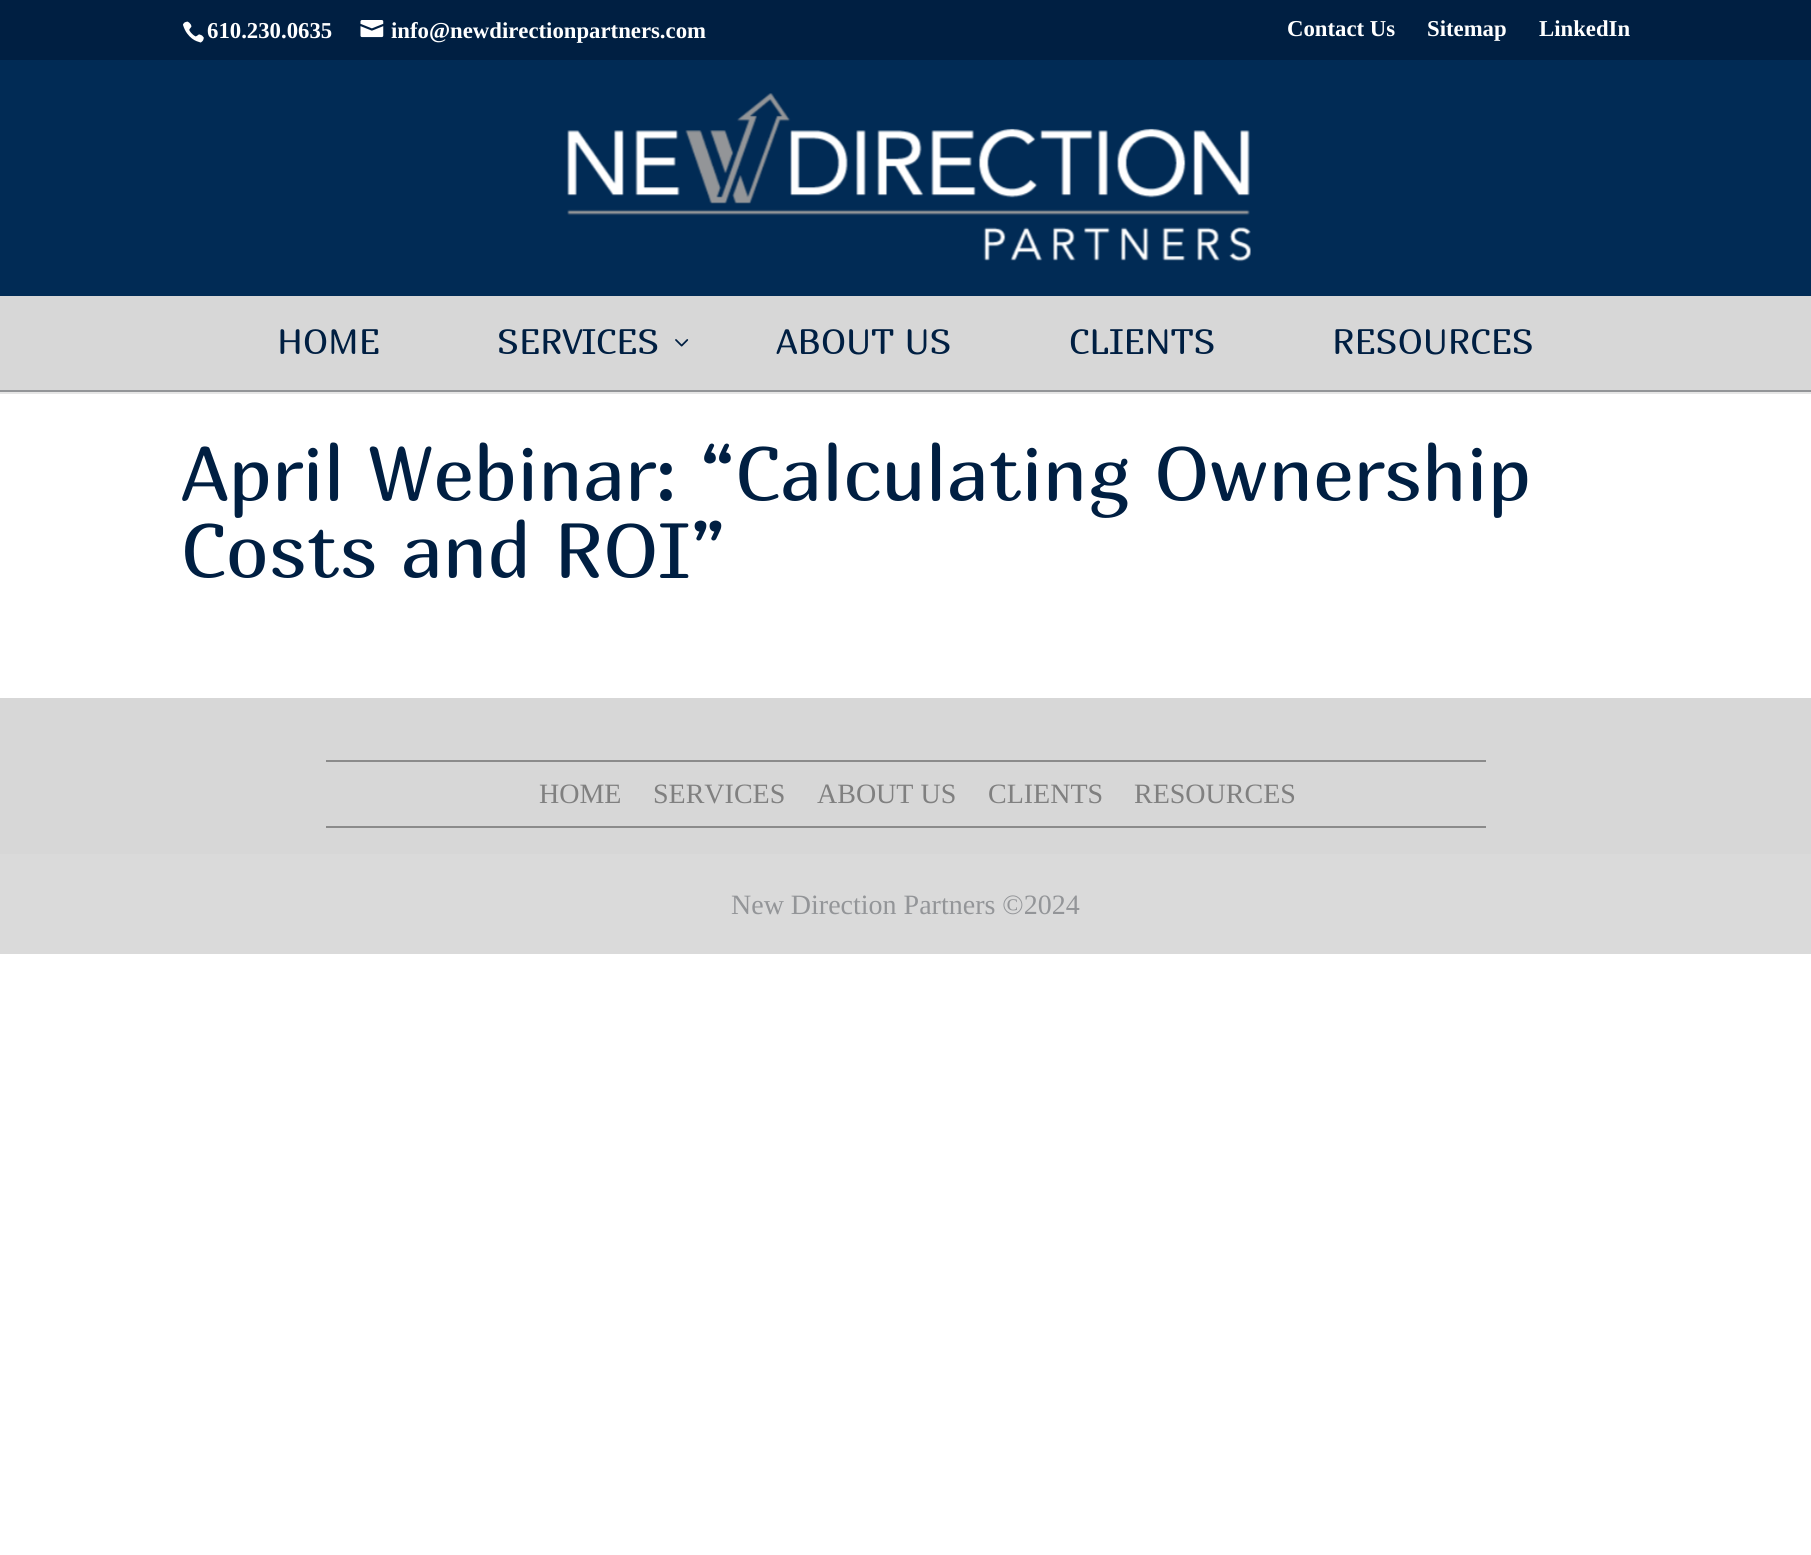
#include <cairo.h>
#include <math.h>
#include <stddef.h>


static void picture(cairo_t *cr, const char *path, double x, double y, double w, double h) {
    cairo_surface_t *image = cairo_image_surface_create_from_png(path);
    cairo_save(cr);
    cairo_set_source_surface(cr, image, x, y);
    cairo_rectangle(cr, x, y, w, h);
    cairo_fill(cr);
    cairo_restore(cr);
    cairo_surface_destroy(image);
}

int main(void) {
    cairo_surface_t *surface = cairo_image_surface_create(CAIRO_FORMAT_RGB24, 1811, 1555);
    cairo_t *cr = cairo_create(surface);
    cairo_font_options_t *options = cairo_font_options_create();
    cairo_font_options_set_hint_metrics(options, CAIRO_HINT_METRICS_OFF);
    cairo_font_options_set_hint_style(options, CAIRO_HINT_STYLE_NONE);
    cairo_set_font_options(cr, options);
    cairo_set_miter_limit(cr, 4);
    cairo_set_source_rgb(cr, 1, 1, 1);
    cairo_paint(cr);
    cairo_set_source_rgb(cr, 0, 0.122, 0.259);
    cairo_rectangle(cr, 0, 0, 1811, 60);
    cairo_fill(cr);
    picture(cr, "img1.png", 183, 21, 21, 22);
    cairo_select_font_face(cr, "Liberation Serif", CAIRO_FONT_SLANT_NORMAL, CAIRO_FONT_WEIGHT_BOLD);
    cairo_set_font_size(cr, 22.75);
    cairo_set_source_rgb(cr, 1, 1, 1);
    cairo_move_to(cr, 207, 38);
    cairo_show_text(cr, "610.230.0635");
    picture(cr, "img2.png", 360, 20, 24, 18);
    cairo_move_to(cr, 391, 38);
    cairo_show_text(cr, "info@newdirectionpartners.com");
    cairo_move_to(cr, 1287, 36);
    cairo_show_text(cr, "Contact Us");
    cairo_move_to(cr, 1427, 36);
    cairo_show_text(cr, "Sitemap");
    cairo_move_to(cr, 1539, 36);
    cairo_show_text(cr, "LinkedIn");
    cairo_set_source_rgb(cr, 0.902, 0.902, 0.902);
    cairo_rectangle(cr, 0, 392, 1811, 2);
    cairo_fill(cr);
    cairo_set_source_rgb(cr, 0.004, 0.169, 0.333);
    cairo_rectangle(cr, 0, 60, 1811, 236);
    cairo_fill(cr);
    picture(cr, "img3.png", 567, 93, 684, 169);
    cairo_set_source_rgb(cr, 0.843, 0.843, 0.843);
    cairo_rectangle(cr, 0, 296, 1811, 94);
    cairo_fill(cr);
    cairo_set_source_rgb(cr, 0.576, 0.584, 0.596);
    cairo_rectangle(cr, 0, 390, 1811, 2);
    cairo_fill(cr);
    cairo_select_font_face(cr, "Marmelad", CAIRO_FONT_SLANT_NORMAL, CAIRO_FONT_WEIGHT_NORMAL);
    cairo_set_font_size(cr, 35);
    cairo_set_source_rgb(cr, 0, 0.122, 0.259);
    cairo_move_to(cr, 277, 354);
    cairo_show_text(cr, "HOME");
    cairo_move_to(cr, 497, 354);
    cairo_show_text(cr, "SERVICES");
    picture(cr, "img4.png", 675, 339, 14, 8);
    cairo_move_to(cr, 776, 354);
    cairo_show_text(cr, "ABOUT US");
    cairo_move_to(cr, 1069, 354);
    cairo_show_text(cr, "CLIENTS");
    cairo_move_to(cr, 1332, 354);
    cairo_show_text(cr, "RESOURCES");
    cairo_set_font_size(cr, 77);
    cairo_move_to(cr, 181, 501);
    cairo_show_text(cr, "April Webinar: “Calculating Ownership");
    cairo_move_to(cr, 181, 578);
    cairo_show_text(cr, "Costs and ROI”");
    cairo_set_source_rgb(cr, 0.843, 0.843, 0.843);
    cairo_rectangle(cr, 0, 698, 1811, 156);
    cairo_fill(cr);
    cairo_set_source_rgb(cr, 0.545, 0.545, 0.545);
    cairo_rectangle(cr, 326, 760, 1160, 2);
    cairo_fill(cr);
    cairo_rectangle(cr, 326, 826, 1160, 2);
    cairo_fill(cr);
    cairo_select_font_face(cr, "Liberation Serif", CAIRO_FONT_SLANT_NORMAL, CAIRO_FONT_WEIGHT_NORMAL);
    cairo_set_font_size(cr, 28);
    cairo_set_source_rgb(cr, 0.502, 0.502, 0.502);
    cairo_move_to(cr, 539, 803);
    cairo_show_text(cr, "HOME");
    cairo_move_to(cr, 653, 803);
    cairo_show_text(cr, "SERVICES");
    cairo_move_to(cr, 817, 803);
    cairo_show_text(cr, "ABOUT US");
    cairo_move_to(cr, 988, 803);
    cairo_show_text(cr, "CLIENTS");
    cairo_move_to(cr, 1134, 803);
    cairo_show_text(cr, "RESOURCES");
    cairo_set_source_rgb(cr, 0.855, 0.855, 0.855);
    cairo_rectangle(cr, 0, 854, 1811, 100);
    cairo_fill(cr);
    cairo_set_source_rgb(cr, 0.576, 0.584, 0.596);
    cairo_move_to(cr, 731, 914);
    cairo_show_text(cr, "New Direction Partners ©2024");
    cairo_surface_write_to_png(surface, "page.png");
    cairo_font_options_destroy(options);
    cairo_destroy(cr);
    cairo_surface_destroy(surface);
    return 0;
}
